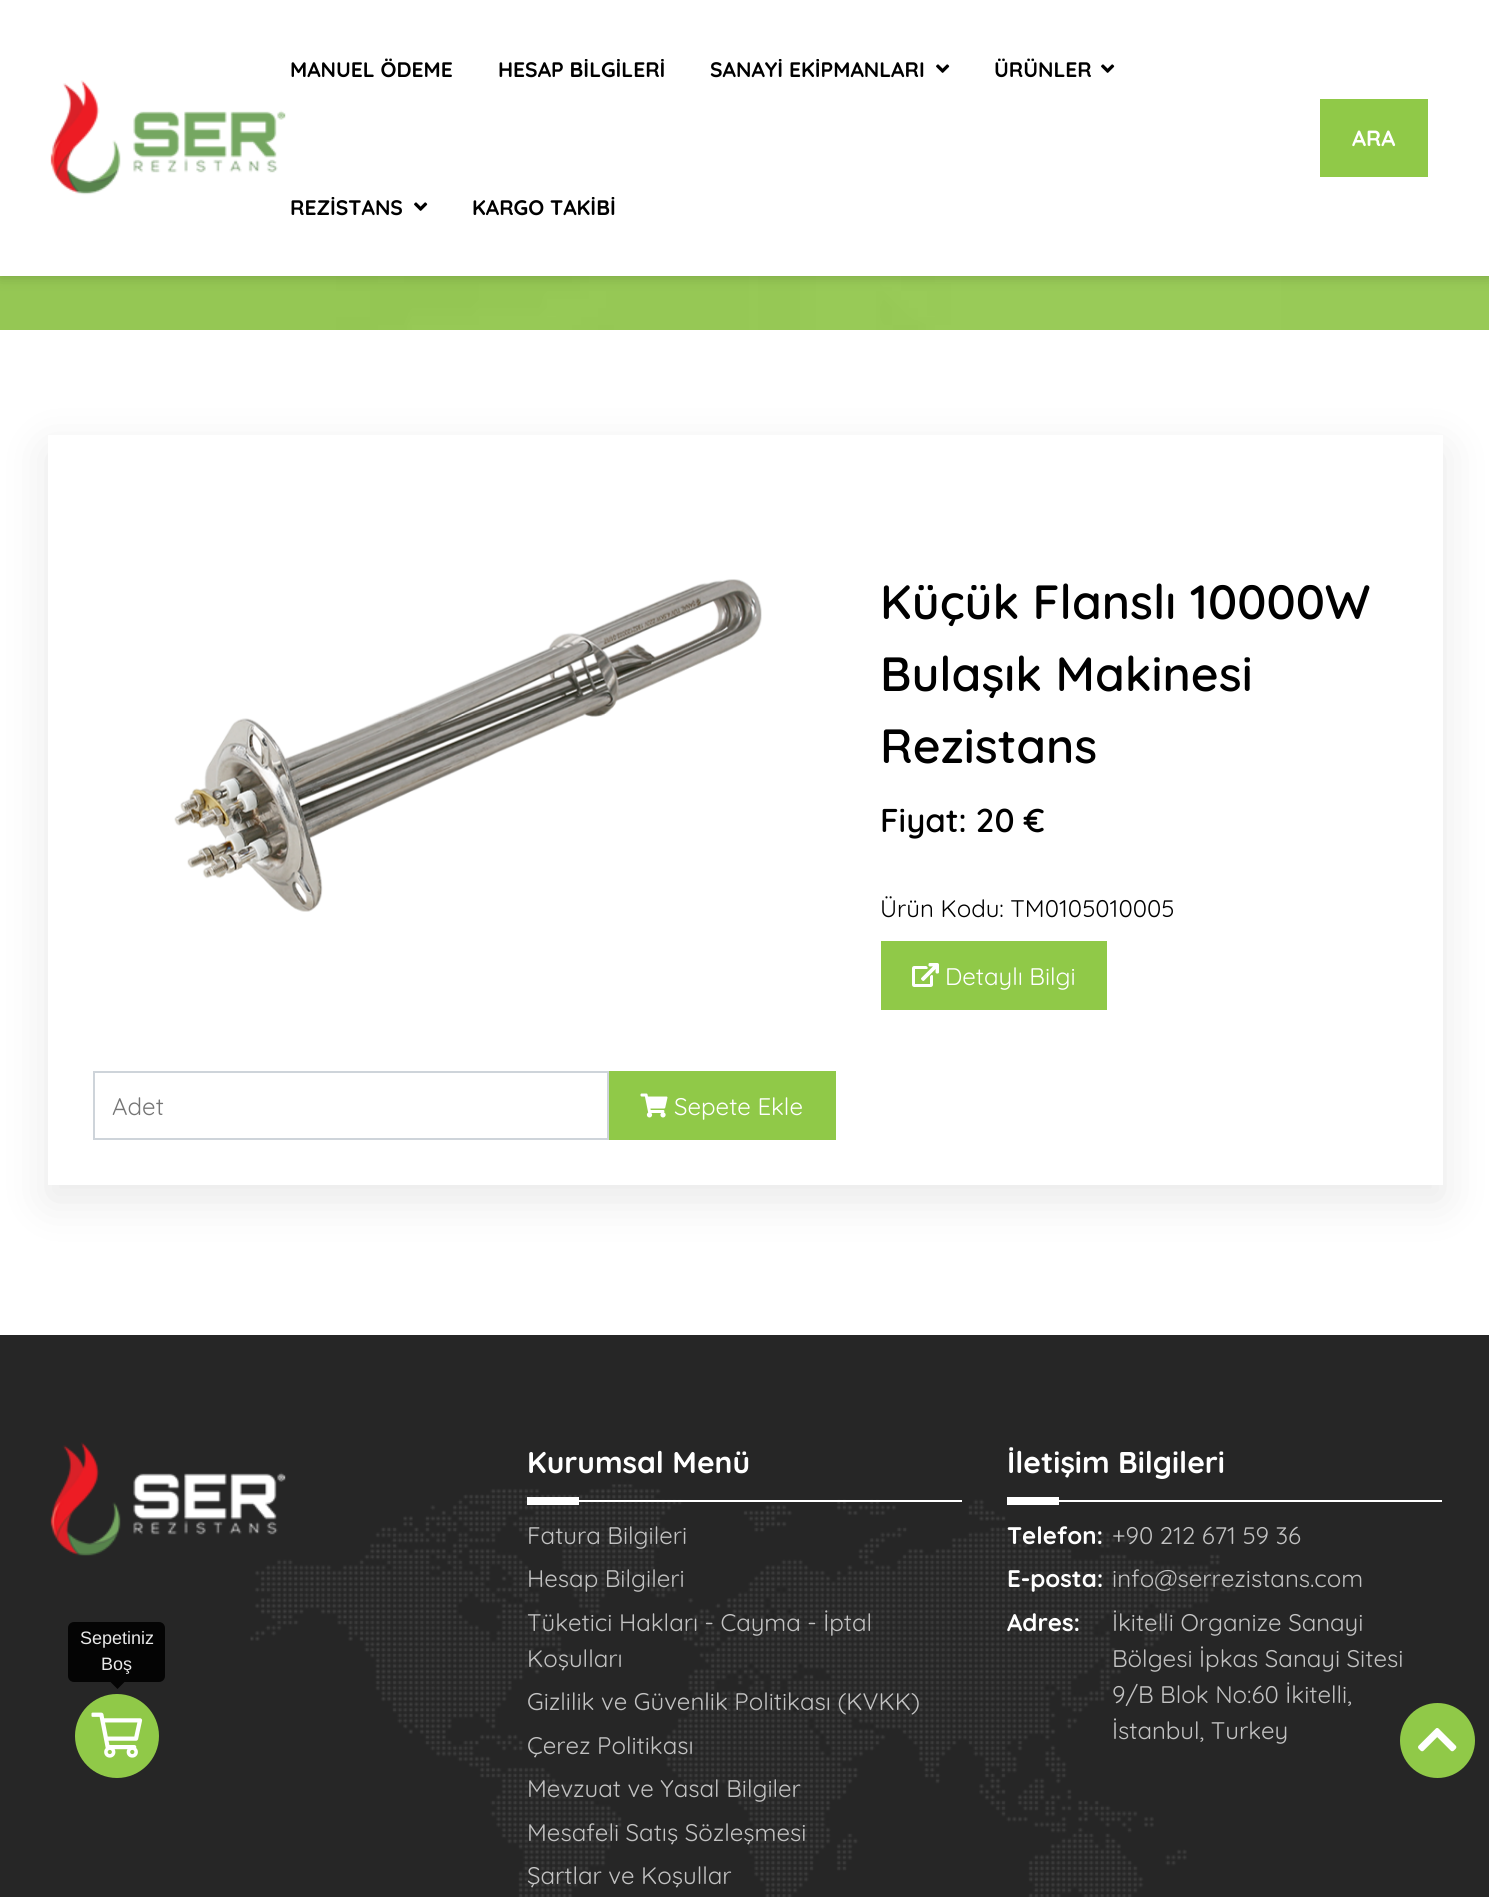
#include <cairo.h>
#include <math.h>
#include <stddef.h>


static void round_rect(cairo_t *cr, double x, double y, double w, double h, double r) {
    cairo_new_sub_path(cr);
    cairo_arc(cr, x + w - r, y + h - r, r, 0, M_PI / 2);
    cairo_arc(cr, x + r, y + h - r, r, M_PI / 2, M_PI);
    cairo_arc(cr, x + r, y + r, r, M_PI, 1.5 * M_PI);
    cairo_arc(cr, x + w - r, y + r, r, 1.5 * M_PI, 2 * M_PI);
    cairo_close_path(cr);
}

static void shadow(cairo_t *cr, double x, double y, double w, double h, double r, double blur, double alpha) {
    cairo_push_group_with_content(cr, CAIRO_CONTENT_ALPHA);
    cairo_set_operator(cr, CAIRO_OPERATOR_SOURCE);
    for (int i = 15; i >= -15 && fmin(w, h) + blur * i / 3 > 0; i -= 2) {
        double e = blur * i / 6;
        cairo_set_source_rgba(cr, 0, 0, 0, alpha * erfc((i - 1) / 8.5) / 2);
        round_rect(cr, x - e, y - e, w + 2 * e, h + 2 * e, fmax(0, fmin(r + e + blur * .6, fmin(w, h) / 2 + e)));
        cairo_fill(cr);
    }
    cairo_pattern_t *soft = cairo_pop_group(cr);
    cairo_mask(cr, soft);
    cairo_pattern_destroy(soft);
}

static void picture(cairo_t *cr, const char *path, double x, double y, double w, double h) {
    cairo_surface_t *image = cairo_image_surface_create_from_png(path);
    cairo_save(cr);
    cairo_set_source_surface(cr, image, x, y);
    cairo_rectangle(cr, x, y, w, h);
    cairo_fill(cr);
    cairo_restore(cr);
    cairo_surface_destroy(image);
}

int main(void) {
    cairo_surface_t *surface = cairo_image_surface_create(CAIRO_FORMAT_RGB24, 1489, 1897);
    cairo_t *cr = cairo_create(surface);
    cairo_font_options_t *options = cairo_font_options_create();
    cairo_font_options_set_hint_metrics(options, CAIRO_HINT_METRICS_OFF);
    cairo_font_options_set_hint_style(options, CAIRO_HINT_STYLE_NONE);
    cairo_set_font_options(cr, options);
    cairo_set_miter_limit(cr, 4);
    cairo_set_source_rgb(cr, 1, 1, 1);
    cairo_paint(cr);
    picture(cr, "img3.png", 0, 276, 1489, 54);
    cairo_set_source_rgb(cr, 0, 0, 0);
    shadow(cr, 0, 0, 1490, 276, 0, 7, 0.2);
    cairo_set_source_rgb(cr, 1, 1, 1);
    cairo_rectangle(cr, 0, 0, 1489, 276);
    cairo_fill(cr);
    picture(cr, "img1.png", 50, 80, 236, 115);
    cairo_select_font_face(cr, "Quicksand", CAIRO_FONT_SLANT_NORMAL, CAIRO_FONT_WEIGHT_BOLD);
    cairo_set_font_size(cr, 21);
    cairo_set_source_rgb(cr, 0, 0, 0);
    cairo_move_to(cr, 290, 77);
    cairo_show_text(cr, "MANUEL ÖDEME");
    cairo_move_to(cr, 498, 77);
    cairo_show_text(cr, "HESAP BİLGİLERİ");
    cairo_move_to(cr, 710, 77);
    cairo_show_text(cr, "SANAYİ EKİPMANLARI");
    picture(cr, "img2.png", 936, 64, 14, 9);
    cairo_move_to(cr, 994, 77);
    cairo_show_text(cr, "ÜRÜNLER");
    picture(cr, "img2.png", 1101, 64, 14, 9);
    cairo_move_to(cr, 290, 215);
    cairo_show_text(cr, "REZİSTANS");
    picture(cr, "img2.png", 414, 202, 14, 9);
    cairo_move_to(cr, 472, 215);
    cairo_show_text(cr, "KARGO TAKİBİ");
    cairo_set_source_rgb(cr, 0.565, 0.788, 0.282);
    cairo_rectangle(cr, 1320, 99, 108, 78);
    cairo_fill(cr);
    cairo_set_font_size(cr, 22);
    cairo_set_source_rgb(cr, 1, 1, 1);
    cairo_move_to(cr, 1352, 146);
    cairo_show_text(cr, "ARA");
    cairo_save(cr);
    cairo_set_fill_rule(cr, CAIRO_FILL_RULE_EVEN_ODD);
    cairo_new_path(cr);
    cairo_move_to(cr, 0, 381);
    cairo_line_to(cr, 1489, 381);
    cairo_line_to(cr, 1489, 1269);
    cairo_line_to(cr, 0, 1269);
    cairo_close_path(cr);
    cairo_move_to(cr, 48, 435);
    cairo_line_to(cr, 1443, 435);
    cairo_line_to(cr, 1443, 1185);
    cairo_line_to(cr, 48, 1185);
    cairo_close_path(cr);
    cairo_clip(cr);
    cairo_set_source_rgb(cr, 0.82, 0.82, 0.82);
    shadow(cr, 48, 450, 1395, 750, 0, 22.5, 0.5);
    cairo_restore(cr);
    cairo_select_font_face(cr, "Quicksand SemiBold", CAIRO_FONT_SLANT_NORMAL, CAIRO_FONT_WEIGHT_NORMAL);
    cairo_set_font_size(cr, 48);
    cairo_set_source_rgb(cr, 0, 0, 0);
    cairo_move_to(cr, 880, 619);
    cairo_show_text(cr, "Küçük Flanslı 10000W");
    cairo_move_to(cr, 880, 691);
    cairo_show_text(cr, "Bulaşık Makinesi");
    cairo_move_to(cr, 880, 763);
    cairo_show_text(cr, "Rezistans");
    cairo_set_font_size(cr, 33);
    cairo_move_to(cr, 880, 832);
    cairo_show_text(cr, "Fiyat: 20 €");
    cairo_select_font_face(cr, "Quicksand", CAIRO_FONT_SLANT_NORMAL, CAIRO_FONT_WEIGHT_NORMAL);
    cairo_set_font_size(cr, 24);
    cairo_move_to(cr, 880, 917);
    cairo_show_text(cr, "Ürün Kodu: TM0105010005");
    cairo_set_source_rgb(cr, 0.565, 0.788, 0.282);
    cairo_rectangle(cr, 881, 941, 226, 69);
    cairo_fill(cr);
    picture(cr, "img4.png", 912, 963, 27, 24);
    cairo_set_source_rgb(cr, 1, 1, 1);
    cairo_move_to(cr, 945, 985);
    cairo_show_text(cr, "Detaylı Bilgi");
    picture(cr, "img5.png", 174, 579, 588, 333);
    cairo_rectangle(cr, 94, 1072, 514, 67);
    cairo_set_source_rgb(cr, 0.808, 0.831, 0.855);
    cairo_stroke(cr);
    cairo_set_source_rgb(cr, 0.459, 0.459, 0.459);
    cairo_move_to(cr, 112, 1115);
    cairo_show_text(cr, "Adet");
    cairo_set_source_rgb(cr, 0.565, 0.788, 0.282);
    cairo_rectangle(cr, 609, 1071, 227, 69);
    cairo_fill(cr);
    picture(cr, "img6.png", 640, 1093, 28, 25);
    cairo_set_source_rgb(cr, 1, 1, 1);
    cairo_move_to(cr, 674, 1115);
    cairo_show_text(cr, "Sepete Ekle");
    cairo_set_source_rgb(cr, 0.149, 0.149, 0.149);
    cairo_rectangle(cr, 0, 1335, 1489, 562);
    cairo_fill(cr);
    cairo_set_source_rgb(cr, 0.016, 0.016, 0.016);
    round_rect(cr, 68, 1622, 97, 60, 6);
    cairo_fill(cr);
    cairo_select_font_face(cr, "Liberation Sans", CAIRO_FONT_SLANT_NORMAL, CAIRO_FONT_WEIGHT_NORMAL);
    cairo_set_font_size(cr, 18);
    cairo_set_source_rgb(cr, 0.914, 0.914, 0.914);
    cairo_move_to(cr, 80, 1644);
    cairo_show_text(cr, "Sepetiniz");
    cairo_move_to(cr, 101, 1670);
    cairo_show_text(cr, "Boş");
    cairo_set_source_rgb(cr, 0.016, 0.016, 0.016);
    cairo_new_path(cr);
    cairo_move_to(cr, 110, 1681.5);
    cairo_line_to(cr, 125, 1681.5);
    cairo_line_to(cr, 117.5, 1689);
    cairo_close_path(cr);
    cairo_fill(cr);
    cairo_set_source_rgb(cr, 0.565, 0.788, 0.282);
    cairo_arc(cr, 117, 1736, 42, 0, 2 * M_PI);
    cairo_fill(cr);
    picture(cr, "img7.png", 91, 1712, 52, 46);
    picture(cr, "img8.png", 250, 1484, 991, 413);
    picture(cr, "img9.png", 50, 1442, 236, 114);
    cairo_set_source_rgb(cr, 1, 1, 1);
    cairo_rectangle(cr, 579, 1500, 383, 2);
    cairo_fill(cr);
    cairo_select_font_face(cr, "Quicksand", CAIRO_FONT_SLANT_NORMAL, CAIRO_FONT_WEIGHT_BOLD);
    cairo_set_font_size(cr, 30);
    cairo_move_to(cr, 527, 1473);
    cairo_show_text(cr, "Kurumsal Menü");
    cairo_rectangle(cr, 527, 1497, 52, 8);
    cairo_fill(cr);
    cairo_select_font_face(cr, "Quicksand", CAIRO_FONT_SLANT_NORMAL, CAIRO_FONT_WEIGHT_NORMAL);
    cairo_set_font_size(cr, 24);
    cairo_set_source_rgb(cr, 0.761, 0.761, 0.761);
    cairo_move_to(cr, 527, 1544);
    cairo_show_text(cr, "Fatura Bilgileri");
    cairo_move_to(cr, 527, 1587);
    cairo_show_text(cr, "Hesap Bilgileri");
    cairo_move_to(cr, 527, 1631);
    cairo_show_text(cr, "Tüketici Hakları - Cayma - İptal");
    cairo_move_to(cr, 527, 1667);
    cairo_show_text(cr, "Koşulları");
    cairo_move_to(cr, 527, 1710);
    cairo_show_text(cr, "Gizlilik ve Güvenlik Politikası (KVKK)");
    cairo_move_to(cr, 527, 1754);
    cairo_show_text(cr, "Çerez Politikası");
    cairo_move_to(cr, 527, 1797);
    cairo_show_text(cr, "Mevzuat ve Yasal Bilgiler");
    cairo_move_to(cr, 527, 1841);
    cairo_show_text(cr, "Mesafeli Satış Sözleşmesi");
    cairo_move_to(cr, 527, 1884);
    cairo_show_text(cr, "Şartlar ve Koşullar");
    cairo_set_source_rgb(cr, 1, 1, 1);
    cairo_rectangle(cr, 1059, 1500, 383, 2);
    cairo_fill(cr);
    cairo_select_font_face(cr, "Quicksand", CAIRO_FONT_SLANT_NORMAL, CAIRO_FONT_WEIGHT_BOLD);
    cairo_set_font_size(cr, 30);
    cairo_move_to(cr, 1007, 1473);
    cairo_show_text(cr, "İletişim Bilgileri");
    cairo_rectangle(cr, 1007, 1497, 52, 8);
    cairo_fill(cr);
    cairo_set_font_size(cr, 24);
    cairo_move_to(cr, 1007, 1544);
    cairo_show_text(cr, "Telefon:");
    cairo_select_font_face(cr, "Quicksand", CAIRO_FONT_SLANT_NORMAL, CAIRO_FONT_WEIGHT_NORMAL);
    cairo_set_source_rgb(cr, 0.761, 0.761, 0.761);
    cairo_move_to(cr, 1112, 1544);
    cairo_show_text(cr, "+90 212 671 59 36");
    cairo_select_font_face(cr, "Quicksand", CAIRO_FONT_SLANT_NORMAL, CAIRO_FONT_WEIGHT_BOLD);
    cairo_set_source_rgb(cr, 1, 1, 1);
    cairo_move_to(cr, 1007, 1587);
    cairo_show_text(cr, "E-posta:");
    cairo_select_font_face(cr, "Quicksand", CAIRO_FONT_SLANT_NORMAL, CAIRO_FONT_WEIGHT_NORMAL);
    cairo_set_source_rgb(cr, 0.761, 0.761, 0.761);
    cairo_move_to(cr, 1112, 1587);
    cairo_show_text(cr, "info@serrezistans.com");
    cairo_select_font_face(cr, "Quicksand", CAIRO_FONT_SLANT_NORMAL, CAIRO_FONT_WEIGHT_BOLD);
    cairo_set_source_rgb(cr, 1, 1, 1);
    cairo_move_to(cr, 1007, 1631);
    cairo_show_text(cr, "Adres:");
    cairo_select_font_face(cr, "Quicksand", CAIRO_FONT_SLANT_NORMAL, CAIRO_FONT_WEIGHT_NORMAL);
    cairo_set_source_rgb(cr, 0.761, 0.761, 0.761);
    cairo_move_to(cr, 1112, 1631);
    cairo_show_text(cr, "İkitelli Organize Sanayi");
    cairo_move_to(cr, 1112, 1667);
    cairo_show_text(cr, "Bölgesi İpkas Sanayi Sitesi");
    cairo_move_to(cr, 1112, 1703);
    cairo_show_text(cr, "9/B Blok No:60 İkitelli,");
    cairo_move_to(cr, 1112, 1739);
    cairo_show_text(cr, "İstanbul, Turkey");
    cairo_set_source_rgb(cr, 0.565, 0.788, 0.282);
    cairo_new_path(cr);
    cairo_arc(cr, 1437.5, 1740.5, 37.5, 0, 2 * M_PI);
    cairo_fill(cr);
    picture(cr, "img10.png", 1418, 1728, 39, 24);
    cairo_surface_write_to_png(surface, "page.png");
    cairo_font_options_destroy(options);
    cairo_destroy(cr);
    cairo_surface_destroy(surface);
    return 0;
}
